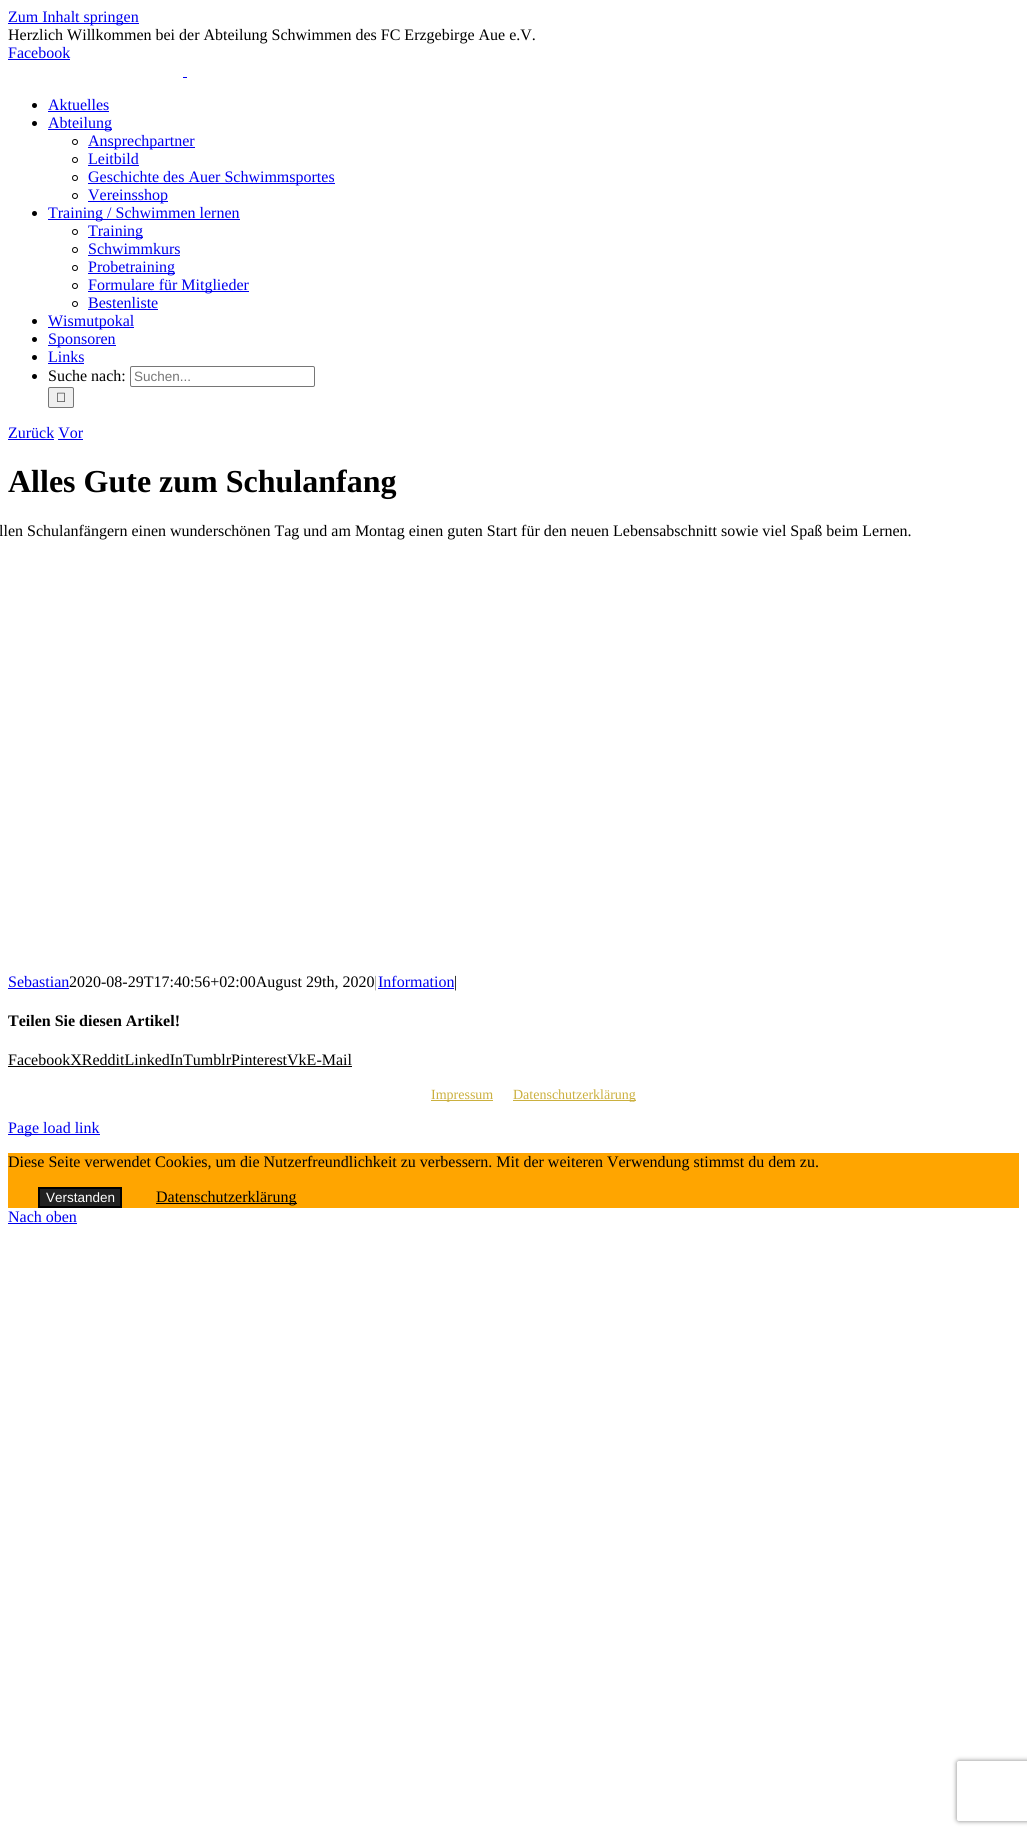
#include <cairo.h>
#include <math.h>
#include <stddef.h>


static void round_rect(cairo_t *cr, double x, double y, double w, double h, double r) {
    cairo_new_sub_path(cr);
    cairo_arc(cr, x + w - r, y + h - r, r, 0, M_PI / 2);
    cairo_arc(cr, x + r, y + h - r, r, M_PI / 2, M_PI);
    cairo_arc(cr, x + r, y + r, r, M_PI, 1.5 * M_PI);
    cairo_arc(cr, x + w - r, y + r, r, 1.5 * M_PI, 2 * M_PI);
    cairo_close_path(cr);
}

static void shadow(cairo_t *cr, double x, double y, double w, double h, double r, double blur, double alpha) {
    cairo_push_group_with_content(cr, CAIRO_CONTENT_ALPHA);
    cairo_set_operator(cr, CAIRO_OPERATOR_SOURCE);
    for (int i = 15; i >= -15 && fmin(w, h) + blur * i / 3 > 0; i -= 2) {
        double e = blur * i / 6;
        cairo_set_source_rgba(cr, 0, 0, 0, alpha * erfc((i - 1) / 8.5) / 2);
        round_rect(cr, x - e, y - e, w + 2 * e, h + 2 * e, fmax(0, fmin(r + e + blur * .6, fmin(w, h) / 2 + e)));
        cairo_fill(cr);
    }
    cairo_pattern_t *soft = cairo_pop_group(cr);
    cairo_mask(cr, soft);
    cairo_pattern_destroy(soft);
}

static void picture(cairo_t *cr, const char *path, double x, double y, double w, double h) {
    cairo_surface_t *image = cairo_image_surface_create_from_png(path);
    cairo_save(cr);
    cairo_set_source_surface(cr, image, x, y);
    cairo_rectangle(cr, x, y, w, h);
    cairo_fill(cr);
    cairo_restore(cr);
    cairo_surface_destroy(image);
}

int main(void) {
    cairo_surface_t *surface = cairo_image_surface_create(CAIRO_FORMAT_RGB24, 1027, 1835);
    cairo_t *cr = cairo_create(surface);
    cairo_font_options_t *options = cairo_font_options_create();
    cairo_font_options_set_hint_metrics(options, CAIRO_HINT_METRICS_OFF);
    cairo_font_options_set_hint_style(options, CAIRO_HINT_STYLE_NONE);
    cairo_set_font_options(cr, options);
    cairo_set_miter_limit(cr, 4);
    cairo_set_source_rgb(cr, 1, 1, 1);
    cairo_paint(cr);
    cairo_set_source_rgb(cr, 0, 0, 0.933);
    cairo_rectangle(cr, 8, 23, 131, 1);
    cairo_fill(cr);
    cairo_select_font_face(cr, "Liberation Serif", CAIRO_FONT_SLANT_NORMAL, CAIRO_FONT_WEIGHT_NORMAL);
    cairo_set_font_size(cr, 16);
    cairo_move_to(cr, 8, 22);
    cairo_show_text(cr, "Zum Inhalt springen");
    cairo_set_source_rgb(cr, 0, 0, 0);
    cairo_move_to(cr, 8, 40);
    cairo_show_text(cr, "Herzlich Willkommen bei der Abteilung Schwimmen des FC Erzgebirge Aue e.V.");
    cairo_set_source_rgb(cr, 0, 0, 0.933);
    cairo_move_to(cr, 8, 58);
    cairo_show_text(cr, "Facebook");
    cairo_rectangle(cr, 8, 59, 62, 1);
    cairo_fill(cr);
    cairo_rectangle(cr, 183, 77, 4, 1);
    cairo_fill(cr);
    cairo_set_source_rgb(cr, 0, 0, 0);
    cairo_arc(cr, 34.5, 105.5, 2.5, 0, 2 * M_PI);
    cairo_fill(cr);
    cairo_set_source_rgb(cr, 0, 0, 0.933);
    cairo_move_to(cr, 48, 110);
    cairo_show_text(cr, "Aktuelles");
    cairo_rectangle(cr, 48, 111, 61, 1);
    cairo_fill(cr);
    cairo_set_source_rgb(cr, 0, 0, 0);
    cairo_arc(cr, 34.5, 123.5, 2.5, 0, 2 * M_PI);
    cairo_fill(cr);
    cairo_set_source_rgb(cr, 0, 0, 0.933);
    cairo_rectangle(cr, 48, 129, 64, 1);
    cairo_fill(cr);
    cairo_move_to(cr, 48, 128);
    cairo_show_text(cr, "Abteilung");
    cairo_new_path(cr);
    cairo_arc(cr, 75, 142, 2.5, 0, 2 * M_PI);
    cairo_set_source_rgb(cr, 0, 0, 0);
    cairo_set_line_width(cr, 1);
    cairo_stroke(cr);
    cairo_set_source_rgb(cr, 0, 0, 0.933);
    cairo_rectangle(cr, 88, 147, 107, 1);
    cairo_fill(cr);
    cairo_move_to(cr, 88, 146);
    cairo_show_text(cr, "Ansprechpartner");
    cairo_new_path(cr);
    cairo_arc(cr, 75, 160, 2.5, 0, 2 * M_PI);
    cairo_set_source_rgb(cr, 0, 0, 0);
    cairo_stroke(cr);
    cairo_set_source_rgb(cr, 0, 0, 0.933);
    cairo_move_to(cr, 88, 164);
    cairo_show_text(cr, "Leitbild");
    cairo_rectangle(cr, 88, 165, 51, 1);
    cairo_fill(cr);
    cairo_arc(cr, 75, 178, 2.5, 0, 2 * M_PI);
    cairo_set_source_rgb(cr, 0, 0, 0);
    cairo_stroke(cr);
    cairo_set_source_rgb(cr, 0, 0, 0.933);
    cairo_rectangle(cr, 88, 183, 247, 1);
    cairo_fill(cr);
    cairo_move_to(cr, 88, 182);
    cairo_show_text(cr, "Geschichte des Auer Schwimmsportes");
    cairo_new_path(cr);
    cairo_arc(cr, 75, 196, 2.5, 0, 2 * M_PI);
    cairo_set_source_rgb(cr, 0, 0, 0);
    cairo_stroke(cr);
    cairo_set_source_rgb(cr, 0, 0, 0.933);
    cairo_rectangle(cr, 88, 201, 80, 1);
    cairo_fill(cr);
    cairo_move_to(cr, 88, 200);
    cairo_show_text(cr, "Vereinsshop");
    cairo_set_source_rgb(cr, 0, 0, 0);
    cairo_new_path(cr);
    cairo_arc(cr, 34.5, 213.5, 2.5, 0, 2 * M_PI);
    cairo_fill(cr);
    cairo_set_source_rgb(cr, 0, 0, 0.933);
    cairo_rectangle(cr, 48, 219, 192, 1);
    cairo_fill(cr);
    cairo_move_to(cr, 48, 218);
    cairo_show_text(cr, "Training / Schwimmen lernen");
    cairo_new_path(cr);
    cairo_arc(cr, 75, 232, 2.5, 0, 2 * M_PI);
    cairo_set_source_rgb(cr, 0, 0, 0);
    cairo_stroke(cr);
    cairo_set_source_rgb(cr, 0, 0, 0.933);
    cairo_rectangle(cr, 88, 237, 55, 1);
    cairo_fill(cr);
    cairo_move_to(cr, 88, 236);
    cairo_show_text(cr, "Training");
    cairo_new_path(cr);
    cairo_arc(cr, 75, 250, 2.5, 0, 2 * M_PI);
    cairo_set_source_rgb(cr, 0, 0, 0);
    cairo_stroke(cr);
    cairo_set_source_rgb(cr, 0, 0, 0.933);
    cairo_move_to(cr, 88, 254);
    cairo_show_text(cr, "Schwimmkurs");
    cairo_rectangle(cr, 88, 255, 92, 1);
    cairo_fill(cr);
    cairo_arc(cr, 75, 268, 2.5, 0, 2 * M_PI);
    cairo_set_source_rgb(cr, 0, 0, 0);
    cairo_stroke(cr);
    cairo_set_source_rgb(cr, 0, 0, 0.933);
    cairo_rectangle(cr, 88, 273, 87, 1);
    cairo_fill(cr);
    cairo_move_to(cr, 88, 272);
    cairo_show_text(cr, "Probetraining");
    cairo_new_path(cr);
    cairo_arc(cr, 75, 286, 2.5, 0, 2 * M_PI);
    cairo_set_source_rgb(cr, 0, 0, 0);
    cairo_stroke(cr);
    cairo_set_source_rgb(cr, 0, 0, 0.933);
    cairo_rectangle(cr, 88, 291, 161, 1);
    cairo_fill(cr);
    cairo_move_to(cr, 88, 290);
    cairo_show_text(cr, "Formulare für Mitglieder");
    cairo_new_path(cr);
    cairo_arc(cr, 75, 304, 2.5, 0, 2 * M_PI);
    cairo_set_source_rgb(cr, 0, 0, 0);
    cairo_stroke(cr);
    cairo_set_source_rgb(cr, 0, 0, 0.933);
    cairo_move_to(cr, 88, 308);
    cairo_show_text(cr, "Bestenliste");
    cairo_rectangle(cr, 88, 309, 70, 1);
    cairo_fill(cr);
    cairo_set_source_rgb(cr, 0, 0, 0);
    cairo_arc(cr, 34.5, 321.5, 2.5, 0, 2 * M_PI);
    cairo_fill(cr);
    cairo_set_source_rgb(cr, 0, 0, 0.933);
    cairo_rectangle(cr, 48, 327, 86, 1);
    cairo_fill(cr);
    cairo_move_to(cr, 48, 326);
    cairo_show_text(cr, "Wismutpokal");
    cairo_set_source_rgb(cr, 0, 0, 0);
    cairo_new_path(cr);
    cairo_arc(cr, 34.5, 339.5, 2.5, 0, 2 * M_PI);
    cairo_fill(cr);
    cairo_set_source_rgb(cr, 0, 0, 0.933);
    cairo_rectangle(cr, 48, 345, 68, 1);
    cairo_fill(cr);
    cairo_move_to(cr, 48, 344);
    cairo_show_text(cr, "Sponsoren");
    cairo_set_source_rgb(cr, 0, 0, 0);
    cairo_new_path(cr);
    cairo_arc(cr, 34.5, 357.5, 2.5, 0, 2 * M_PI);
    cairo_fill(cr);
    cairo_set_source_rgb(cr, 0, 0, 0.933);
    cairo_move_to(cr, 48, 362);
    cairo_show_text(cr, "Links");
    cairo_rectangle(cr, 48, 363, 36, 1);
    cairo_fill(cr);
    cairo_set_source_rgb(cr, 0, 0, 0);
    cairo_arc(cr, 34.5, 376.5, 2.5, 0, 2 * M_PI);
    cairo_fill(cr);
    cairo_move_to(cr, 48, 381);
    cairo_show_text(cr, "Suche nach:");
    round_rect(cr, 130.5, 366.5, 184, 20, 1.5);
    cairo_set_source_rgb(cr, 0.463, 0.463, 0.463);
    cairo_stroke(cr);
    cairo_select_font_face(cr, "Liberation Sans", CAIRO_FONT_SLANT_NORMAL, CAIRO_FONT_WEIGHT_NORMAL);
    cairo_set_font_size(cr, 13.5);
    cairo_set_source_rgb(cr, 0.459, 0.459, 0.459);
    cairo_move_to(cr, 134, 381);
    cairo_show_text(cr, "Suchen...");
    cairo_set_source_rgb(cr, 0.937, 0.937, 0.937);
    round_rect(cr, 48.5, 387.5, 25, 20, 1.5);
    cairo_fill_preserve(cr);
    cairo_set_source_rgb(cr, 0.463, 0.463, 0.463);
    cairo_stroke(cr);
    picture(cr, "img1.png", 57, 392, 8, 10);
    cairo_select_font_face(cr, "Liberation Serif", CAIRO_FONT_SLANT_NORMAL, CAIRO_FONT_WEIGHT_NORMAL);
    cairo_set_font_size(cr, 16);
    cairo_set_source_rgb(cr, 0, 0, 0.933);
    cairo_move_to(cr, 8, 438);
    cairo_show_text(cr, "Zurück Vor");
    cairo_rectangle(cr, 8, 439, 46, 1);
    cairo_fill(cr);
    cairo_rectangle(cr, 58, 439, 25, 1);
    cairo_fill(cr);
    cairo_select_font_face(cr, "Liberation Serif", CAIRO_FONT_SLANT_NORMAL, CAIRO_FONT_WEIGHT_BOLD);
    cairo_set_font_size(cr, 32);
    cairo_set_source_rgb(cr, 0, 0, 0);
    cairo_move_to(cr, 8, 492);
    cairo_show_text(cr, "Alles Gute zum Schulanfang");
    cairo_select_font_face(cr, "Liberation Serif", CAIRO_FONT_SLANT_NORMAL, CAIRO_FONT_WEIGHT_NORMAL);
    cairo_set_font_size(cr, 16);
    cairo_move_to(cr, -1, 536);
    cairo_show_text(cr, "llen Schulanfängern einen wunderschönen Tag und am Montag einen guten Start für den neuen Lebensabschnitt sowie viel Spaß beim Lernen.");
    cairo_set_source_rgb(cr, 0, 0, 0.933);
    cairo_move_to(cr, 8, 987);
    cairo_show_text(cr, "Sebastian");
    cairo_rectangle(cr, 8, 988, 61, 1);
    cairo_fill(cr);
    cairo_set_source_rgb(cr, 0, 0, 0);
    cairo_move_to(cr, 69, 987);
    cairo_show_text(cr, "2020-08-29T17:40:56+02:00August 29th, 2020|");
    cairo_set_source_rgb(cr, 0, 0, 0.933);
    cairo_move_to(cr, 378, 987);
    cairo_show_text(cr, "Information");
    cairo_rectangle(cr, 378, 988, 76, 1);
    cairo_fill(cr);
    cairo_set_source_rgb(cr, 0, 0, 0);
    cairo_move_to(cr, 454, 987);
    cairo_show_text(cr, "|");
    cairo_select_font_face(cr, "Liberation Serif", CAIRO_FONT_SLANT_NORMAL, CAIRO_FONT_WEIGHT_BOLD);
    cairo_move_to(cr, 8, 1026);
    cairo_show_text(cr, "Teilen Sie diesen Artikel!");
    cairo_select_font_face(cr, "Liberation Serif", CAIRO_FONT_SLANT_NORMAL, CAIRO_FONT_WEIGHT_NORMAL);
    cairo_move_to(cr, 8, 1065);
    cairo_show_text(cr, "FacebookXRedditLinkedInTumblrPinterestVkE-Mail");
    cairo_rectangle(cr, 8, 1066, 344, 1);
    cairo_fill(cr);
    cairo_set_source_rgb(cr, 0.796, 0.69, 0.247);
    cairo_rectangle(cr, 431, 1100, 62, 1);
    cairo_fill(cr);
    cairo_set_font_size(cr, 14);
    cairo_move_to(cr, 431, 1099);
    cairo_show_text(cr, "Impressum");
    cairo_rectangle(cr, 513, 1100, 123, 1);
    cairo_fill(cr);
    cairo_move_to(cr, 513, 1099);
    cairo_show_text(cr, "Datenschutzerklärung");
    cairo_set_source_rgb(cr, 0, 0, 0.933);
    cairo_rectangle(cr, 8, 1134, 92, 1);
    cairo_fill(cr);
    cairo_set_font_size(cr, 16);
    cairo_move_to(cr, 8, 1133);
    cairo_show_text(cr, "Page load link");
    cairo_set_source_rgb(cr, 1, 0.647, 0);
    cairo_rectangle(cr, 8, 1153, 1011, 55);
    cairo_fill(cr);
    cairo_set_source_rgb(cr, 0, 0, 0);
    cairo_move_to(cr, 8, 1167);
    cairo_show_text(cr, "Diese Seite verwendet Cookies, um die Nutzerfreundlichkeit zu verbessern. Mit der weiteren Verwendung stimmst du dem zu.");
    cairo_set_source_rgb(cr, 0.133, 0.133, 0.133);
    cairo_rectangle(cr, 39, 1188, 82, 19);
    cairo_fill_preserve(cr);
    cairo_set_source_rgb(cr, 0, 0, 0);
    cairo_set_line_width(cr, 2);
    cairo_stroke(cr);
    cairo_select_font_face(cr, "Liberation Sans", CAIRO_FONT_SLANT_NORMAL, CAIRO_FONT_WEIGHT_NORMAL);
    cairo_set_font_size(cr, 13.5);
    cairo_set_source_rgb(cr, 1, 1, 1);
    cairo_move_to(cr, 46, 1202);
    cairo_show_text(cr, "Verstanden");
    cairo_set_source_rgb(cr, 0, 0, 0);
    cairo_rectangle(cr, 156, 1203, 141, 1);
    cairo_fill(cr);
    cairo_select_font_face(cr, "Liberation Serif", CAIRO_FONT_SLANT_NORMAL, CAIRO_FONT_WEIGHT_NORMAL);
    cairo_set_font_size(cr, 16);
    cairo_move_to(cr, 156, 1202);
    cairo_show_text(cr, "Datenschutzerklärung");
    cairo_set_source_rgb(cr, 0, 0, 0.933);
    cairo_move_to(cr, 8, 1222);
    cairo_show_text(cr, "Nach oben");
    cairo_rectangle(cr, 8, 1223, 69, 1);
    cairo_fill(cr);
    cairo_save(cr);
    cairo_set_fill_rule(cr, CAIRO_FILL_RULE_EVEN_ODD);
    cairo_new_path(cr);
    cairo_move_to(cr, 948, 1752);
    cairo_line_to(cr, 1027, 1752);
    cairo_line_to(cr, 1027, 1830);
    cairo_line_to(cr, 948, 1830);
    cairo_close_path(cr);
    cairo_move_to(cr, 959, 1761);
    cairo_line_to(cr, 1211, 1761);
    cairo_curve_to(cr, 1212, 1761, 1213, 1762, 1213, 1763);
    cairo_line_to(cr, 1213, 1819);
    cairo_curve_to(cr, 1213, 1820, 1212, 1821, 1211, 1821);
    cairo_line_to(cr, 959, 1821);
    cairo_curve_to(cr, 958, 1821, 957, 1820, 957, 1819);
    cairo_line_to(cr, 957, 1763);
    cairo_curve_to(cr, 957, 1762, 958, 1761, 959, 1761);
    cairo_close_path(cr);
    cairo_clip(cr);
    cairo_set_source_rgb(cr, 0.502, 0.502, 0.502);
    shadow(cr, 957, 1761, 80, 60, 2, 2.5, 1);
    cairo_restore(cr);
    cairo_surface_write_to_png(surface, "page.png");
    cairo_font_options_destroy(options);
    cairo_destroy(cr);
    cairo_surface_destroy(surface);
    return 0;
}
